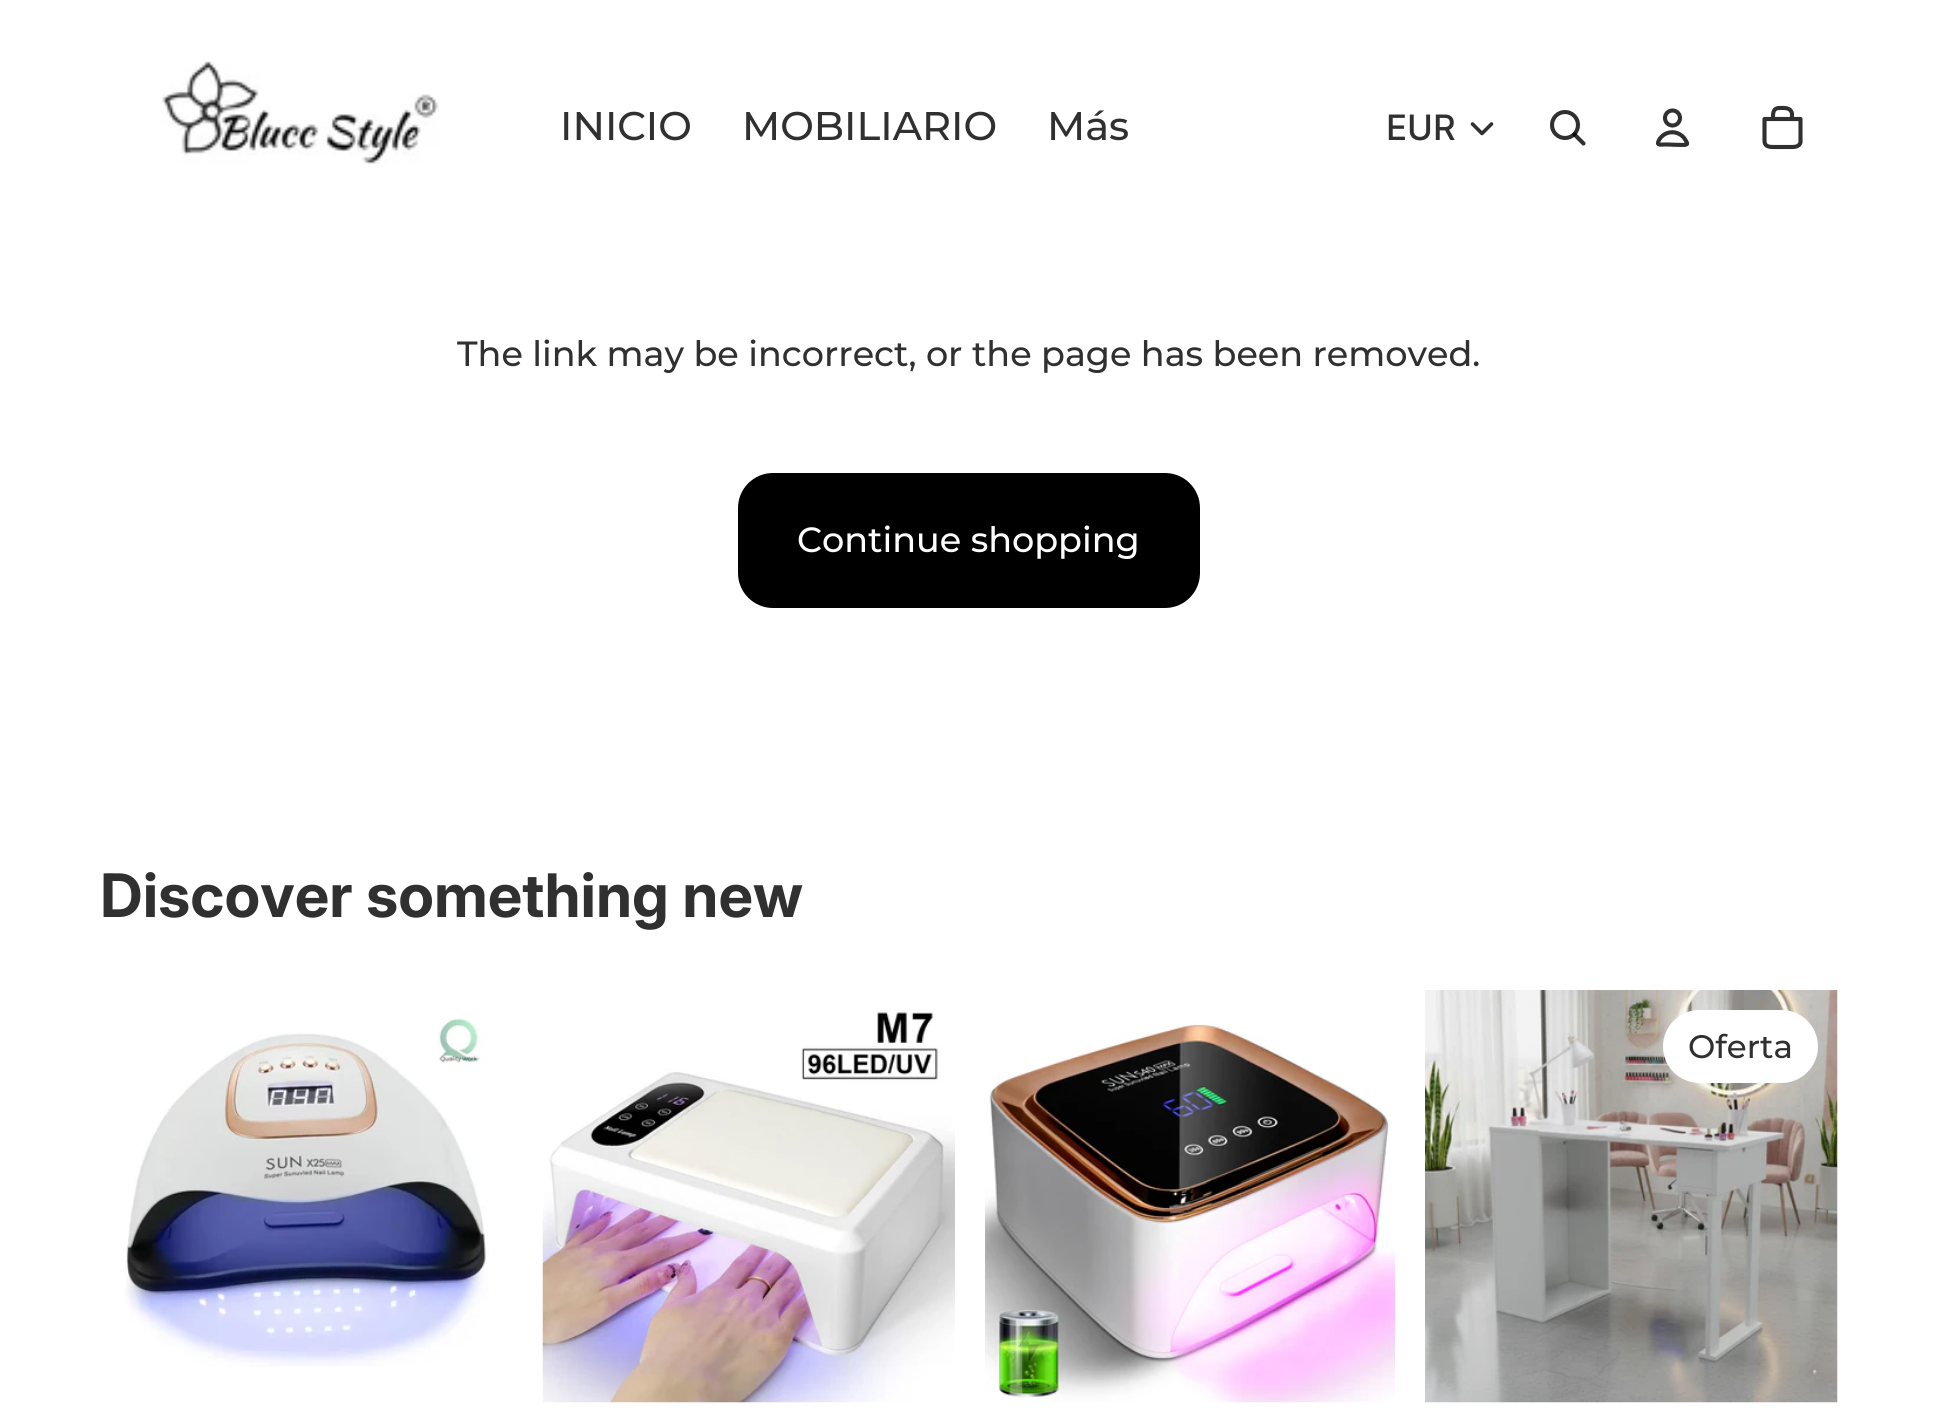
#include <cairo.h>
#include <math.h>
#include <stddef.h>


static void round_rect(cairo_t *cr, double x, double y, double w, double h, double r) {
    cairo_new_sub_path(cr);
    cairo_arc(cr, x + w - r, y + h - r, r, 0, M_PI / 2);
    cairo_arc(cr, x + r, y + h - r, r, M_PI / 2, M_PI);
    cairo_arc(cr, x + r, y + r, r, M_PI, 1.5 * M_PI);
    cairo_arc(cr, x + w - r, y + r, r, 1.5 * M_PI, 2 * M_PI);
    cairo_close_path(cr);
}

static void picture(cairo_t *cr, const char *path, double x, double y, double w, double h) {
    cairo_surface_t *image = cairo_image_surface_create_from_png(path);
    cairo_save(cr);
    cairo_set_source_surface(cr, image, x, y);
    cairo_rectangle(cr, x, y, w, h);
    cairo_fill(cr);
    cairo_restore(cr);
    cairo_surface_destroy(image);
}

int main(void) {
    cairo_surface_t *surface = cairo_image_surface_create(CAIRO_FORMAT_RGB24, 1936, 1411);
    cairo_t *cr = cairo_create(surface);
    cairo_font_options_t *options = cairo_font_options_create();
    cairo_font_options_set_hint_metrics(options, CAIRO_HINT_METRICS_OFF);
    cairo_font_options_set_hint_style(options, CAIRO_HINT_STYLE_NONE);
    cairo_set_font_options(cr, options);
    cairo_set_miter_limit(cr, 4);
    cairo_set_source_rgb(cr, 1, 1, 1);
    cairo_paint(cr);
    picture(cr, "img1.png", 161, 61, 278, 103);
    cairo_select_font_face(cr, "Montserrat Medium", CAIRO_FONT_SLANT_NORMAL, CAIRO_FONT_WEIGHT_NORMAL);
    cairo_set_font_size(cr, 40);
    cairo_set_source_rgb(cr, 0.188, 0.188, 0.188);
    cairo_move_to(cr, 560, 140);
    cairo_show_text(cr, "INICIO");
    cairo_move_to(cr, 742, 140);
    cairo_show_text(cr, "MOBILIARIO");
    cairo_move_to(cr, 1047, 140);
    cairo_show_text(cr, "Más");
    cairo_select_font_face(cr, "Inter Medium", CAIRO_FONT_SLANT_NORMAL, CAIRO_FONT_WEIGHT_NORMAL);
    cairo_set_font_size(cr, 35);
    cairo_move_to(cr, 1386, 140);
    cairo_show_text(cr, "EUR");
    cairo_new_path(cr);
    cairo_move_to(cr, 1491.5, 124);
    cairo_line_to(cr, 1482, 133.5);
    cairo_line_to(cr, 1472.5, 124);
    cairo_set_line_width(cr, 3.6);
    cairo_set_line_cap(cr, CAIRO_LINE_CAP_ROUND);
    cairo_set_line_join(cr, CAIRO_LINE_JOIN_ROUND);
    cairo_stroke(cr);
    cairo_arc(cr, 1565, 125, 13, 0, 2 * M_PI);
    cairo_set_line_width(cr, 4.1);
    cairo_set_line_cap(cr, CAIRO_LINE_CAP_BUTT);
    cairo_set_line_join(cr, CAIRO_LINE_JOIN_MITER);
    cairo_stroke(cr);
    cairo_new_path(cr);
    cairo_move_to(cr, 1574.5, 134.5);
    cairo_line_to(cr, 1583.5, 143.5);
    cairo_set_source_rgba(cr, 0, 0, 0, 0.81);
    cairo_set_line_cap(cr, CAIRO_LINE_CAP_ROUND);
    cairo_set_line_join(cr, CAIRO_LINE_JOIN_ROUND);
    cairo_stroke(cr);
    cairo_arc(cr, 1672.5, 118, 7.5, 0, 2 * M_PI);
    cairo_set_source_rgb(cr, 0.188, 0.188, 0.188);
    cairo_set_line_cap(cr, CAIRO_LINE_CAP_BUTT);
    cairo_set_line_join(cr, CAIRO_LINE_JOIN_MITER);
    cairo_stroke(cr);
    cairo_new_path(cr);
    cairo_move_to(cr, 1659, 140);
    cairo_line_to(cr, 1658, 142.5);
    cairo_curve_to(cr, 1657, 145.5, 1663, 144.5, 1664, 144.5);
    cairo_line_to(cr, 1668, 144.5);
    cairo_curve_to(cr, 1670.5, 144.5, 1685.5, 145.5, 1686.5, 144.5);
    cairo_line_to(cr, 1687, 144);
    cairo_curve_to(cr, 1687.5, 143, 1686.5, 142, 1686, 141);
    cairo_curve_to(cr, 1680.5, 130, 1665.5, 129, 1659, 140);
    cairo_set_line_cap(cr, CAIRO_LINE_CAP_ROUND);
    cairo_set_line_join(cr, CAIRO_LINE_JOIN_ROUND);
    cairo_stroke(cr);
    cairo_new_path(cr);
    cairo_move_to(cr, 1764.5, 119);
    cairo_line_to(cr, 1800.5, 119);
    cairo_line_to(cr, 1800.5, 142.5);
    cairo_curve_to(cr, 1799, 147, 1794.5, 147, 1790.5, 147);
    cairo_line_to(cr, 1774.5, 147);
    cairo_curve_to(cr, 1770, 147, 1764.5, 147, 1764.5, 141);
    cairo_close_path(cr);
    cairo_move_to(cr, 1779, 108);
    cairo_curve_to(cr, 1784, 108, 1790.5, 107, 1792, 113.5);
    cairo_line_to(cr, 1792, 119);
    cairo_line_to(cr, 1773, 119);
    cairo_curve_to(cr, 1773, 114, 1772.5, 108, 1779.5, 108);
    cairo_stroke(cr);
    cairo_select_font_face(cr, "Montserrat Medium", CAIRO_FONT_SLANT_NORMAL, CAIRO_FONT_WEIGHT_NORMAL);
    cairo_move_to(cr, 457, 366);
    cairo_show_text(cr, "The link may be incorrect, or the page has been removed.");
    cairo_set_source_rgb(cr, 0, 0, 0);
    round_rect(cr, 738, 473, 462, 135, 35);
    cairo_fill(cr);
    cairo_set_source_rgb(cr, 1, 1, 1);
    cairo_move_to(cr, 797, 552);
    cairo_show_text(cr, "Continue shopping");
    cairo_select_font_face(cr, "Inter", CAIRO_FONT_SLANT_NORMAL, CAIRO_FONT_WEIGHT_BOLD);
    cairo_set_font_size(cr, 60);
    cairo_set_source_rgb(cr, 0.188, 0.188, 0.188);
    cairo_move_to(cr, 100, 917);
    cairo_show_text(cr, "Discover something new");
    picture(cr, "img2.png", 125, 1017, 364, 350);
    picture(cr, "img3.png", 542, 1009, 413, 394);
    picture(cr, "img4.png", 985, 1023, 410, 380);
    picture(cr, "img5.png", 1425, 990, 413, 413);
    cairo_set_source_rgb(cr, 1, 1, 1);
    round_rect(cr, 1663, 1010, 155, 73, 36.5);
    cairo_fill(cr);
    cairo_select_font_face(cr, "Montserrat Medium", CAIRO_FONT_SLANT_NORMAL, CAIRO_FONT_WEIGHT_NORMAL);
    cairo_set_font_size(cr, 32.5);
    cairo_set_source_rgb(cr, 0.188, 0.188, 0.188);
    cairo_move_to(cr, 1688, 1058);
    cairo_show_text(cr, "Oferta");
    cairo_surface_write_to_png(surface, "page.png");
    cairo_font_options_destroy(options);
    cairo_destroy(cr);
    cairo_surface_destroy(surface);
    return 0;
}
